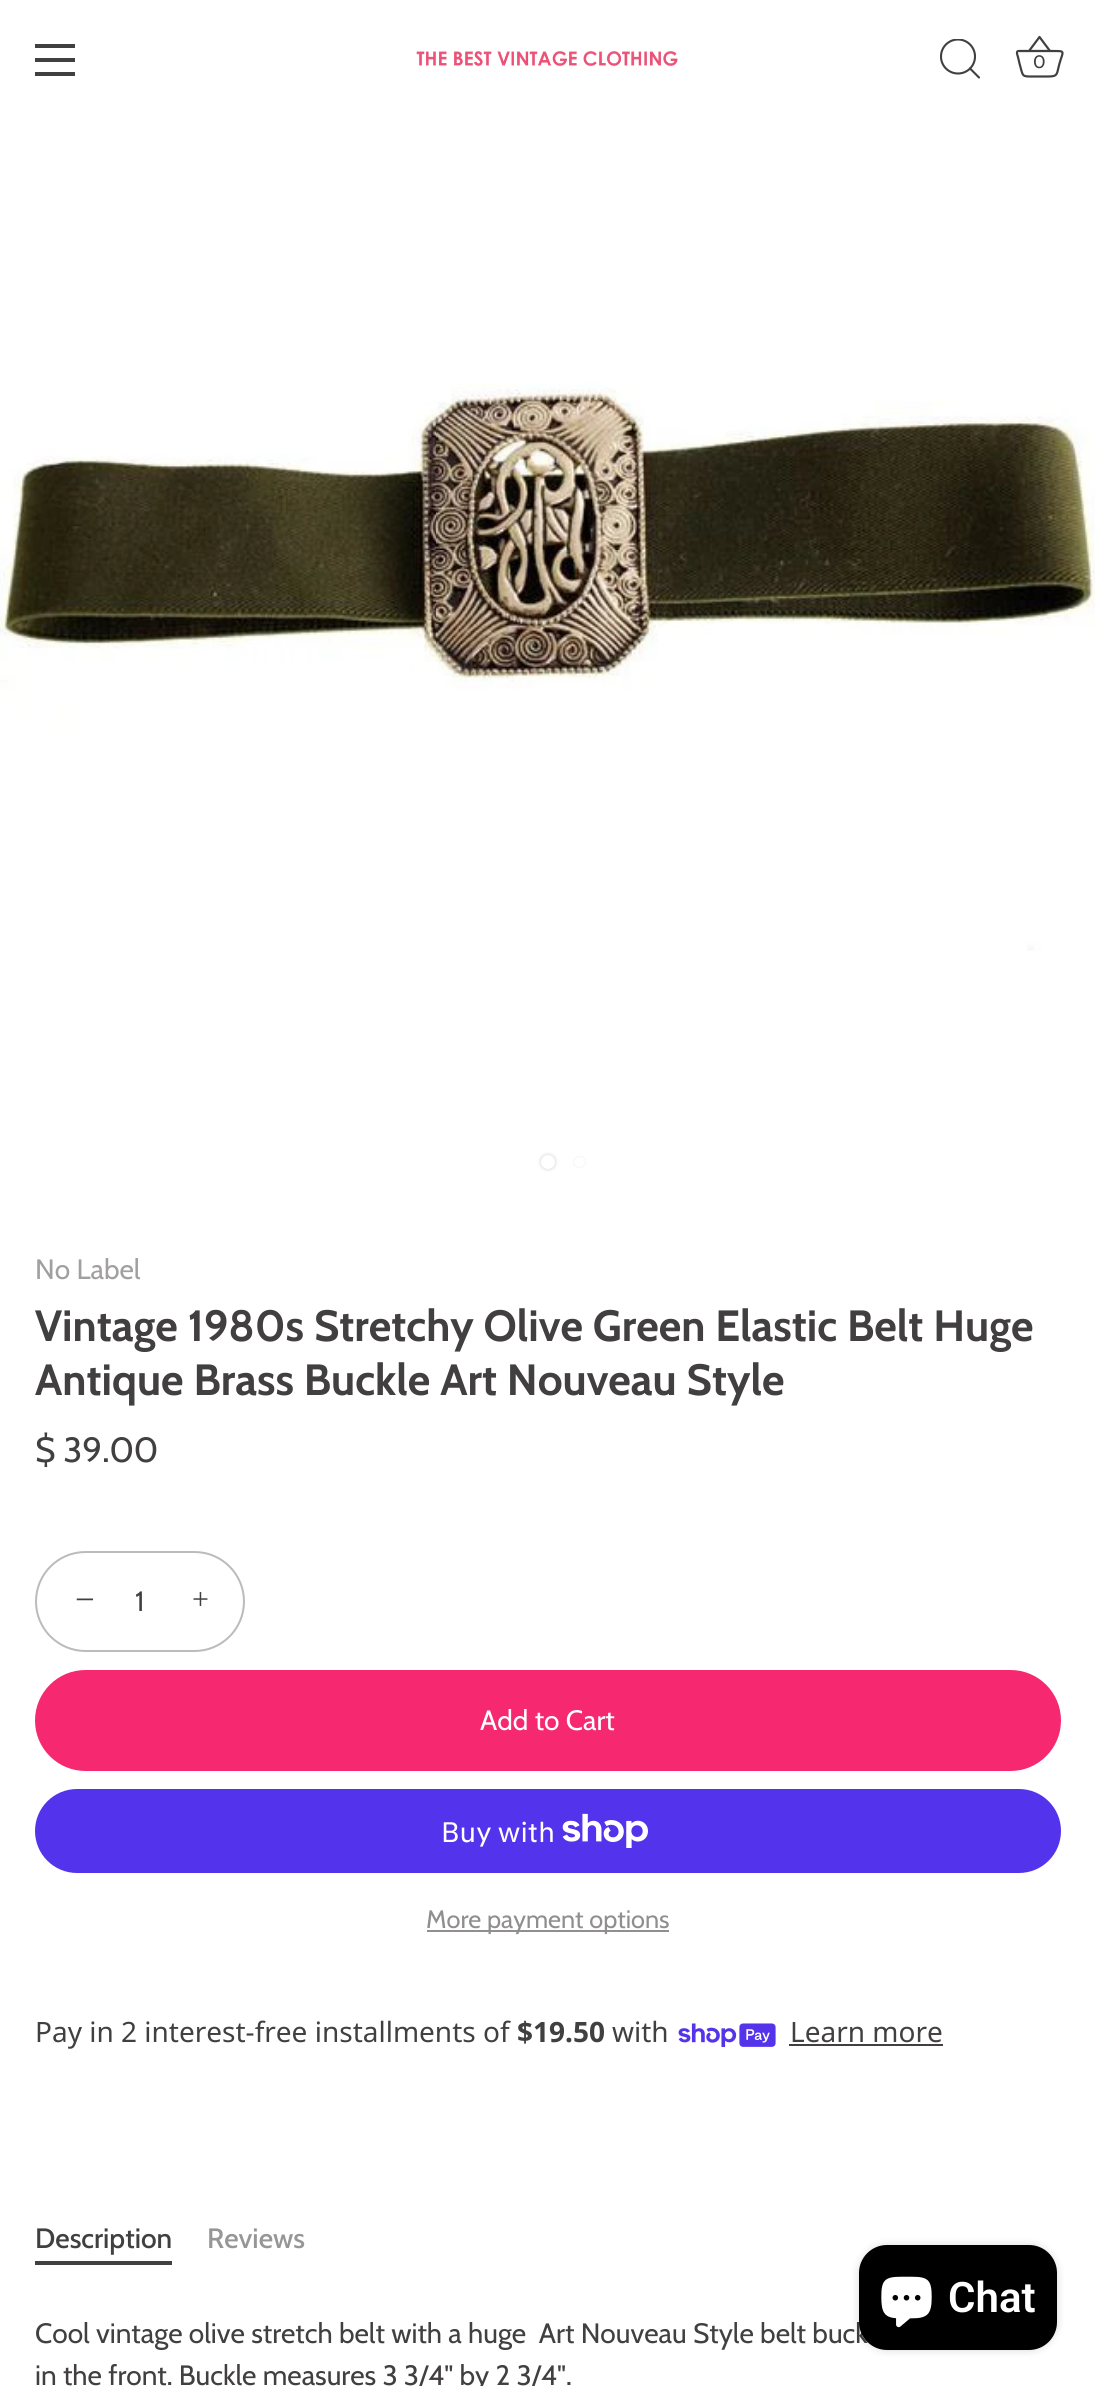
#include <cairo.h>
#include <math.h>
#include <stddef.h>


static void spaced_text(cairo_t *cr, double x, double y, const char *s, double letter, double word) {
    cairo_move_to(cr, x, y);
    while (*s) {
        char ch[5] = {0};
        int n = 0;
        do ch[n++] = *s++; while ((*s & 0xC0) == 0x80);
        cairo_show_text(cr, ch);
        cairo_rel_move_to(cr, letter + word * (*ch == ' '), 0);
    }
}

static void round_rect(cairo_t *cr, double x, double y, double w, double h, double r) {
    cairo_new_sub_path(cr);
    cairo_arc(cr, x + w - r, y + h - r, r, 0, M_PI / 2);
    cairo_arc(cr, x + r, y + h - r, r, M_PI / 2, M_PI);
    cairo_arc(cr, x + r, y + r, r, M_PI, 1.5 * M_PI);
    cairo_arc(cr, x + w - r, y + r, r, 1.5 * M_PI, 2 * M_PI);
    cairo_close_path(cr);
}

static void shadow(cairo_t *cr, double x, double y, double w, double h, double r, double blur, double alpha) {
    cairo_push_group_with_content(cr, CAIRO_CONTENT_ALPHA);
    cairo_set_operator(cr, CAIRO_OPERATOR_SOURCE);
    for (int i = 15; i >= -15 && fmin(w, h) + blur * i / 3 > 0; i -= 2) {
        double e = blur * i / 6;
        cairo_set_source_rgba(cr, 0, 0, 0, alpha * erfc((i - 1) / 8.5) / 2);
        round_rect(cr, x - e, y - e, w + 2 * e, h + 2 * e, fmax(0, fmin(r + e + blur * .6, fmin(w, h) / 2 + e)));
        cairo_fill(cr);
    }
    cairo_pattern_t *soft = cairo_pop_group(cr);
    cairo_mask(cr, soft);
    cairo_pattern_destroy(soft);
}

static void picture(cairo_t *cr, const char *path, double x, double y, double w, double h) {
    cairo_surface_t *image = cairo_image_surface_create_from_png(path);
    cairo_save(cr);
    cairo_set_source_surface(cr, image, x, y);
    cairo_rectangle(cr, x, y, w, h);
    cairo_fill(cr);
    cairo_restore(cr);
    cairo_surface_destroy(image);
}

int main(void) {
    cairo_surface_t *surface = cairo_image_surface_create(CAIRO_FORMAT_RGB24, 1095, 2386);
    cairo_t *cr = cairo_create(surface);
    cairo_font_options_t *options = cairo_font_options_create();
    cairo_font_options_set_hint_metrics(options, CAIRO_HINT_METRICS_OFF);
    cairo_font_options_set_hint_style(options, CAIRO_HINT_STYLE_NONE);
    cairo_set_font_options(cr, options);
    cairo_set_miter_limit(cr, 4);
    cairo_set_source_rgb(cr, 1, 1, 1);
    cairo_paint(cr);
    cairo_set_source_rgb(cr, 0.259, 0.247, 0.247);
    cairo_rectangle(cr, 35, 44, 40, 4);
    cairo_fill(cr);
    cairo_rectangle(cr, 35, 58, 40, 4);
    cairo_fill(cr);
    cairo_rectangle(cr, 35, 72, 40, 4);
    cairo_fill(cr);
    picture(cr, "img1.png", 416, 51, 262, 16);
    cairo_save(cr);
    cairo_rectangle(cr, 940, 39, 42, 42);
    cairo_clip(cr);
    cairo_arc(cr, 958, 56.5, 17, 0, 2 * M_PI);
    cairo_set_line_width(cr, 2.1);
    cairo_stroke(cr);
    cairo_restore(cr);
    cairo_new_path(cr);
    cairo_move_to(cr, 979, 77.5);
    cairo_line_to(cr, 970, 68.5);
    cairo_set_line_width(cr, 2.1);
    cairo_set_line_cap(cr, CAIRO_LINE_CAP_ROUND);
    cairo_set_line_join(cr, CAIRO_LINE_JOIN_ROUND);
    cairo_stroke(cr);
    cairo_new_path(cr);
    cairo_move_to(cr, 1019, 51);
    cairo_curve_to(cr, 1015.5, 50.5, 1017.5, 55.5, 1018, 57);
    cairo_line_to(cr, 1019.5, 63.5);
    cairo_curve_to(cr, 1023.5, 77.5, 1021, 76.5, 1035.5, 76.5);
    cairo_line_to(cr, 1048, 76.5);
    cairo_curve_to(cr, 1058.5, 76.5, 1056.5, 74, 1059.5, 63.5);
    cairo_curve_to(cr, 1063, 51, 1066, 51, 1053, 51);
    cairo_line_to(cr, 1019, 51);
    cairo_move_to(cr, 1029, 51);
    cairo_line_to(cr, 1039.5, 37);
    cairo_line_to(cr, 1050, 51);
    cairo_set_line_width(cr, 2.2);
    cairo_set_line_cap(cr, CAIRO_LINE_CAP_BUTT);
    cairo_stroke(cr);
    cairo_select_font_face(cr, "Cabin", CAIRO_FONT_SLANT_NORMAL, CAIRO_FONT_WEIGHT_NORMAL);
    cairo_set_font_size(cr, 18);
    cairo_set_source_rgb(cr, 0.255, 0.247, 0.247);
    cairo_move_to(cr, 1033, 68);
    cairo_show_text(cr, "0");
    picture(cr, "img2.png", 0, 382, 1095, 569);
    cairo_set_source_rgb(cr, 0, 0, 0);
    shadow(cr, 541, 1155, 14, 14, 7, 2, 0.2);
    cairo_set_source_rgb(cr, 1, 1, 1);
    cairo_arc(cr, 548, 1162, 7, 0, 2 * M_PI);
    cairo_fill(cr);
    cairo_set_source_rgb(cr, 0.502, 0.502, 0.502);
    shadow(cr, 574, 1157, 11, 10, 5, 1, 0.2);
    cairo_set_source_rgb(cr, 1, 1, 1);
    round_rect(cr, 574, 1157, 11, 10, 5);
    cairo_fill(cr);
    cairo_set_font_size(cr, 28);
    cairo_set_source_rgb(cr, 0.631, 0.624, 0.624);
    cairo_move_to(cr, 35, 1279);
    cairo_show_text(cr, "No Label");
    cairo_select_font_face(cr, "Cabin", CAIRO_FONT_SLANT_NORMAL, CAIRO_FONT_WEIGHT_BOLD);
    cairo_set_font_size(cr, 43.7);
    cairo_set_source_rgb(cr, 0.255, 0.247, 0.247);
    cairo_move_to(cr, 35, 1341);
    cairo_show_text(cr, "Vintage 1980s Stretchy Olive Green Elastic Belt Huge");
    cairo_move_to(cr, 35, 1395);
    cairo_show_text(cr, "Antique Brass Buckle Art Nouveau Style");
    cairo_select_font_face(cr, "Cabin", CAIRO_FONT_SLANT_NORMAL, CAIRO_FONT_WEIGHT_NORMAL);
    cairo_set_font_size(cr, 35);
    cairo_move_to(cr, 35, 1462);
    cairo_show_text(cr, "$ 39.00");
    round_rect(cr, 36, 1552, 208, 99, 49.5);
    cairo_set_source_rgb(cr, 0.733, 0.733, 0.733);
    cairo_set_line_width(cr, 2);
    cairo_set_line_join(cr, CAIRO_LINE_JOIN_MITER);
    cairo_stroke(cr);
    cairo_select_font_face(cr, "Liberation Serif", CAIRO_FONT_SLANT_NORMAL, CAIRO_FONT_WEIGHT_NORMAL);
    cairo_set_source_rgb(cr, 0.255, 0.247, 0.247);
    cairo_move_to(cr, 75, 1611);
    cairo_show_text(cr, "−");
    cairo_select_font_face(cr, "Cabin", CAIRO_FONT_SLANT_NORMAL, CAIRO_FONT_WEIGHT_NORMAL);
    cairo_set_font_size(cr, 28);
    spaced_text(cr, 135, 1611, "1", 1, 0);
    cairo_select_font_face(cr, "Liberation Serif", CAIRO_FONT_SLANT_NORMAL, CAIRO_FONT_WEIGHT_NORMAL);
    cairo_set_font_size(cr, 30);
    cairo_move_to(cr, 192, 1609);
    cairo_show_text(cr, "+");
    cairo_set_source_rgb(cr, 0.961, 0.161, 0.439);
    round_rect(cr, 36, 1671, 1024, 99, 49.5);
    cairo_fill_preserve(cr);
    cairo_stroke(cr);
    cairo_select_font_face(cr, "Cabin", CAIRO_FONT_SLANT_NORMAL, CAIRO_FONT_WEIGHT_NORMAL);
    cairo_set_font_size(cr, 28);
    cairo_set_source_rgb(cr, 1, 1, 1);
    cairo_move_to(cr, 480, 1730);
    cairo_show_text(cr, "Add to Cart");
    cairo_set_source_rgb(cr, 0.329, 0.2, 0.922);
    round_rect(cr, 35, 1789, 1026, 84, 42);
    cairo_fill(cr);
    cairo_select_font_face(cr, "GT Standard", CAIRO_FONT_SLANT_NORMAL, CAIRO_FONT_WEIGHT_NORMAL);
    cairo_set_source_rgb(cr, 1, 1, 1);
    cairo_move_to(cr, 441, 1842);
    cairo_show_text(cr, "Buy with");
    picture(cr, "img3.png", 562, 1813, 86, 35);
    cairo_set_source_rgb(cr, 0.565, 0.557, 0.557);
    cairo_rectangle(cr, 427, 1930, 242, 2);
    cairo_fill(cr);
    cairo_select_font_face(cr, "Cabin", CAIRO_FONT_SLANT_NORMAL, CAIRO_FONT_WEIGHT_NORMAL);
    cairo_set_font_size(cr, 25.25);
    cairo_move_to(cr, 426, 1928);
    cairo_show_text(cr, "More payment options");
    cairo_select_font_face(cr, "Noto Sans", CAIRO_FONT_SLANT_NORMAL, CAIRO_FONT_WEIGHT_NORMAL);
    cairo_set_font_size(cr, 28);
    cairo_set_source_rgb(cr, 0.255, 0.247, 0.247);
    cairo_move_to(cr, 35, 2042);
    cairo_show_text(cr, "Pay in 2 interest-free installments of");
    cairo_select_font_face(cr, "Noto Sans", CAIRO_FONT_SLANT_NORMAL, CAIRO_FONT_WEIGHT_BOLD);
    cairo_move_to(cr, 517, 2042);
    cairo_show_text(cr, "$19.50");
    cairo_select_font_face(cr, "Noto Sans", CAIRO_FONT_SLANT_NORMAL, CAIRO_FONT_WEIGHT_NORMAL);
    cairo_move_to(cr, 612, 2042);
    cairo_show_text(cr, "with");
    picture(cr, "img4.png", 678, 2023, 98, 24);
    cairo_move_to(cr, 790, 2042);
    cairo_show_text(cr, "Learn more");
    cairo_set_source_rgb(cr, 0.259, 0.247, 0.247);
    cairo_rectangle(cr, 789, 2044, 154, 2);
    cairo_fill(cr);
    cairo_select_font_face(cr, "Cabin Medium", CAIRO_FONT_SLANT_NORMAL, CAIRO_FONT_WEIGHT_NORMAL);
    cairo_set_source_rgb(cr, 0.255, 0.247, 0.247);
    cairo_move_to(cr, 35, 2248);
    cairo_show_text(cr, "Description");
    cairo_set_source_rgb(cr, 0.259, 0.247, 0.247);
    cairo_rectangle(cr, 35, 2261, 137, 4);
    cairo_fill(cr);
    cairo_set_source_rgb(cr, 0.592, 0.584, 0.584);
    cairo_move_to(cr, 207, 2248);
    cairo_show_text(cr, "Reviews");
    cairo_select_font_face(cr, "Cabin", CAIRO_FONT_SLANT_NORMAL, CAIRO_FONT_WEIGHT_NORMAL);
    cairo_set_source_rgb(cr, 0.255, 0.247, 0.247);
    cairo_move_to(cr, 35, 2343);
    cairo_show_text(cr, "Cool vintage olive stretch belt with a huge  Art Nouveau Style belt buck");
    cairo_move_to(cr, 35, 2385);
    cairo_show_text(cr, "in the front. Buckle measures 3 3/4\" by 2 3/4\".");
    cairo_set_source_rgb(cr, 0, 0, 0);
    shadow(cr, 859, 2245, 198, 105, 28, 4.5, 0.15);
    cairo_set_source_rgb(cr, 0, 0, 0);
    round_rect(cr, 859, 2245, 198, 105, 28);
    cairo_fill(cr);
    picture(cr, "img5.png", 881, 2276, 51, 52);
    cairo_select_font_face(cr, "Roboto SemiBold", CAIRO_FONT_SLANT_NORMAL, CAIRO_FONT_WEIGHT_NORMAL);
    cairo_set_font_size(cr, 42);
    cairo_set_source_rgb(cr, 1, 1, 1);
    cairo_move_to(cr, 948, 2312);
    cairo_show_text(cr, "Chat");
    cairo_surface_write_to_png(surface, "page.png");
    cairo_font_options_destroy(options);
    cairo_destroy(cr);
    cairo_surface_destroy(surface);
    return 0;
}
